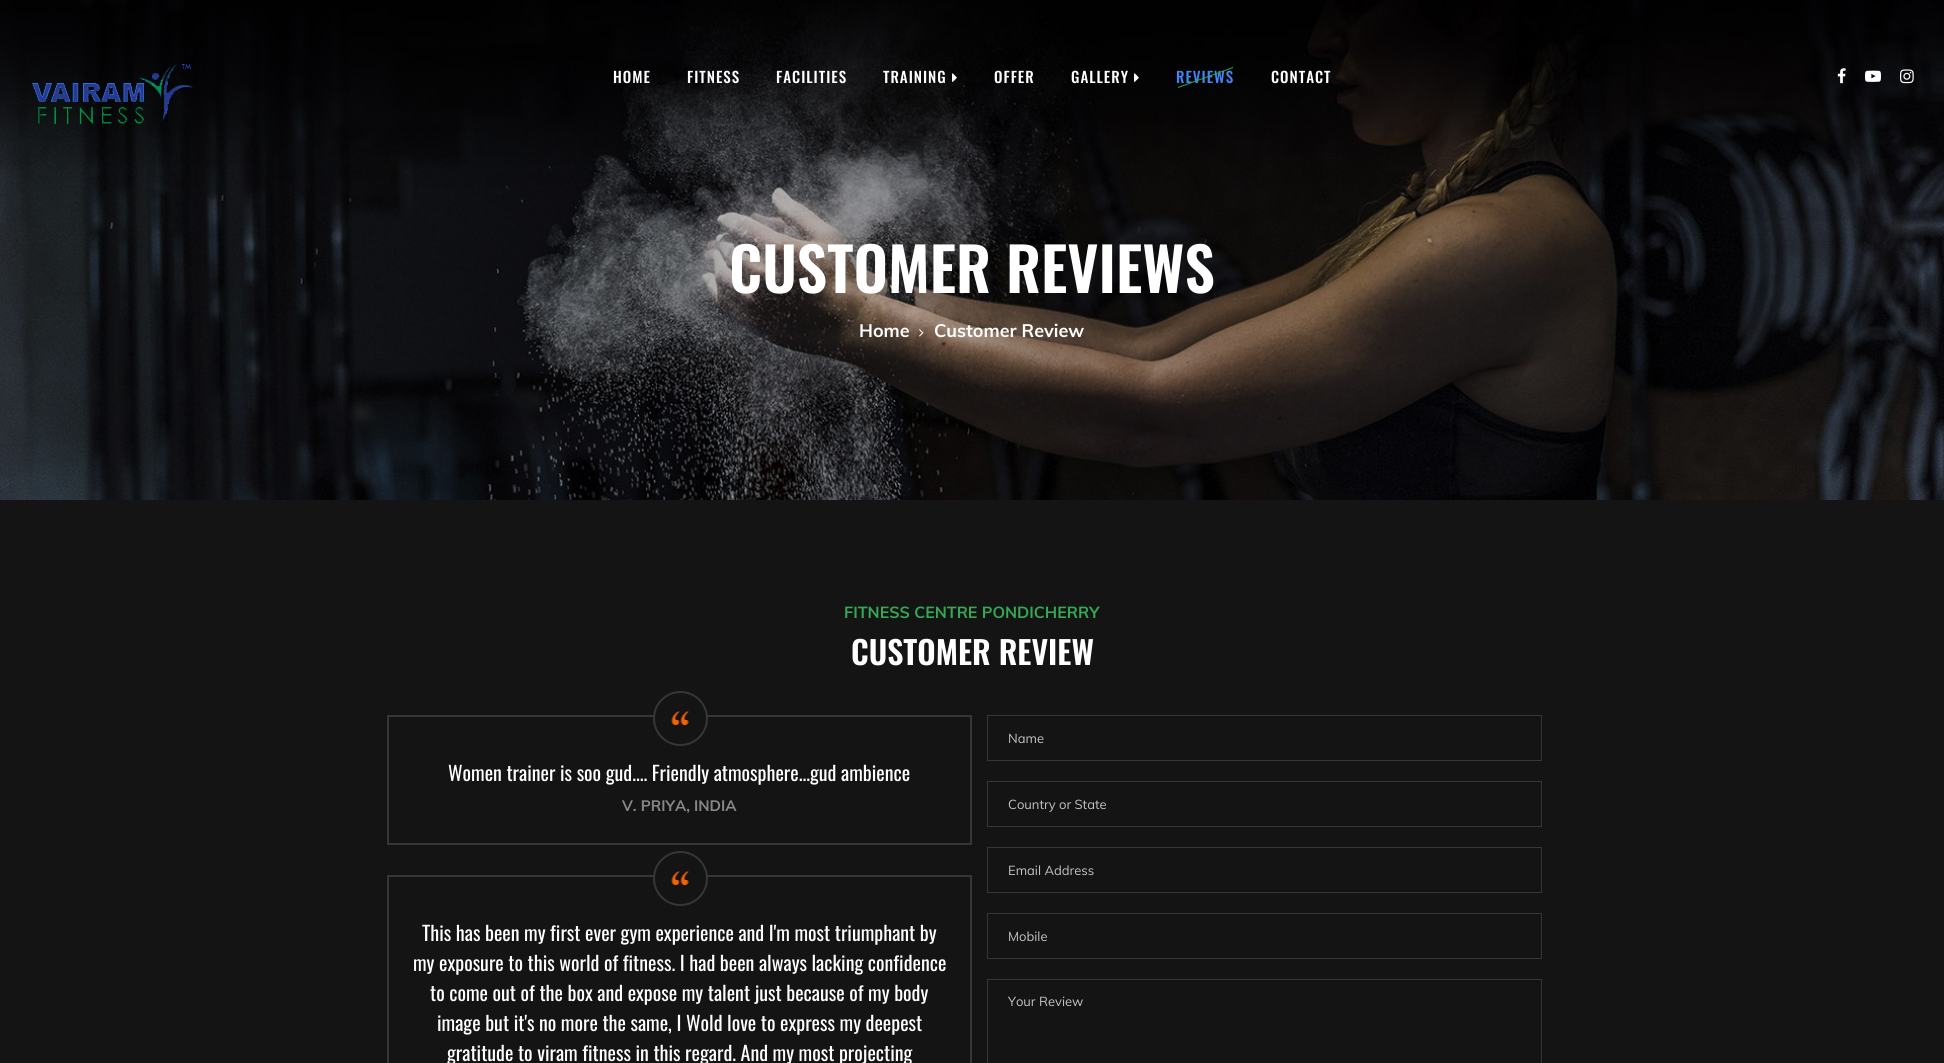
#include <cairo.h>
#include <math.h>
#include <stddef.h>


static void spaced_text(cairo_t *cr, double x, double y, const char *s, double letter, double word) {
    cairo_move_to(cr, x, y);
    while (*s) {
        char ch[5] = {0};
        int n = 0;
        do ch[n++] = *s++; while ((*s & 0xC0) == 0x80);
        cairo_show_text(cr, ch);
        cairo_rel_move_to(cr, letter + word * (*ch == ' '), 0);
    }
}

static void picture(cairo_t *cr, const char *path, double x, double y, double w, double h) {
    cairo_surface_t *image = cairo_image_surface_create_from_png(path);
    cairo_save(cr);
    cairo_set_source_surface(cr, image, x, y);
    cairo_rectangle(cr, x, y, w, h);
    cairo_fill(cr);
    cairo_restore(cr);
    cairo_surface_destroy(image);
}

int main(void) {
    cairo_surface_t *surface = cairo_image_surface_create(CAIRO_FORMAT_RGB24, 1944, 1063);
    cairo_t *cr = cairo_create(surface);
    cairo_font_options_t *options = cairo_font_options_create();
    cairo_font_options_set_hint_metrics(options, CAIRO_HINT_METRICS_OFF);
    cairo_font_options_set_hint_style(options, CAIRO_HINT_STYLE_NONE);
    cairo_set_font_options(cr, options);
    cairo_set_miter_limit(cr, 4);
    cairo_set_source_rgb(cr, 1, 1, 1);
    cairo_paint(cr);
    picture(cr, "img7.png", 0, 0, 1944, 500);
    picture(cr, "img1.png", 32, 64, 162, 60);
    cairo_select_font_face(cr, "Oswald Medium", CAIRO_FONT_SLANT_NORMAL, CAIRO_FONT_WEIGHT_NORMAL);
    cairo_set_font_size(cr, 15);
    cairo_set_source_rgb(cr, 1, 1, 1);
    spaced_text(cr, 613, 83, "HOME", 1, 0);
    spaced_text(cr, 687, 83, "FITNESS", 1, 0);
    spaced_text(cr, 776, 83, "FACILITIES", 1, 0);
    spaced_text(cr, 883, 83, "TRAINING", 1, 0);
    picture(cr, "img2.png", 952, 73, 5, 9);
    spaced_text(cr, 994, 83, "OFFER", 1, 0);
    spaced_text(cr, 1071, 83, "GALLERY", 1, 0);
    picture(cr, "img3.png", 1134, 73, 5, 9);
    cairo_set_source_rgb(cr, 0.259, 0.522, 0.957);
    spaced_text(cr, 1176, 83, "REVIEWS", 1, 0);
    cairo_set_source_rgb(cr, 0.204, 0.659, 0.325);
    cairo_new_path(cr);
    cairo_move_to(cr, 1178, 87);
    cairo_line_to(cr, 1233, 67);
    cairo_line_to(cr, 1233, 68);
    cairo_line_to(cr, 1178, 88);
    cairo_close_path(cr);
    cairo_fill(cr);
    cairo_set_source_rgb(cr, 1, 1, 1);
    spaced_text(cr, 1271, 83, "CONTACT", 1, 0);
    picture(cr, "img4.png", 1837, 68, 9, 16);
    picture(cr, "img5.png", 1865, 70, 16, 12);
    picture(cr, "img6.png", 1900, 69, 14, 15);
    cairo_select_font_face(cr, "Oswald SemiBold", CAIRO_FONT_SLANT_NORMAL, CAIRO_FONT_WEIGHT_NORMAL);
    cairo_set_font_size(cr, 60);
    cairo_move_to(cr, 729, 293);
    cairo_show_text(cr, "CUSTOMER REVIEWS");
    cairo_select_font_face(cr, "Muli", CAIRO_FONT_SLANT_NORMAL, CAIRO_FONT_WEIGHT_BOLD);
    cairo_set_font_size(cr, 18);
    cairo_move_to(cr, 859, 337);
    cairo_show_text(cr, "Home");
    picture(cr, "img8.png", 919, 329, 5, 8);
    cairo_move_to(cr, 934, 337);
    cairo_show_text(cr, "Customer Review");
    cairo_set_source_rgb(cr, 0.082, 0.082, 0.082);
    cairo_rectangle(cr, 0, 500, 1944, 563);
    cairo_fill(cr);
    cairo_set_font_size(cr, 16);
    cairo_set_source_rgb(cr, 0.204, 0.659, 0.325);
    cairo_move_to(cr, 844, 618);
    cairo_show_text(cr, "FITNESS CENTRE PONDICHERRY");
    cairo_select_font_face(cr, "Oswald SemiBold", CAIRO_FONT_SLANT_NORMAL, CAIRO_FONT_WEIGHT_NORMAL);
    cairo_set_font_size(cr, 32);
    cairo_set_source_rgb(cr, 1, 1, 1);
    cairo_move_to(cr, 851, 665);
    cairo_show_text(cr, "CUSTOMER REVIEW");
    cairo_rectangle(cr, 388, 716, 583, 128);
    cairo_set_source_rgb(cr, 0.212, 0.212, 0.212);
    cairo_stroke(cr);
    cairo_set_source_rgb(cr, 0.082, 0.082, 0.082);
    cairo_arc(cr, 680.5, 718.5, 26.5, 0, 2 * M_PI);
    cairo_fill_preserve(cr);
    cairo_set_source_rgb(cr, 0.212, 0.212, 0.212);
    cairo_stroke(cr);
    picture(cr, "img9.png", 671, 711, 18, 14);
    cairo_select_font_face(cr, "Oswald", CAIRO_FONT_SLANT_NORMAL, CAIRO_FONT_WEIGHT_NORMAL);
    cairo_set_font_size(cr, 20);
    cairo_set_source_rgb(cr, 1, 1, 1);
    cairo_move_to(cr, 448, 781);
    cairo_show_text(cr, "Women trainer is soo gud.... Friendly atmosphere...gud ambience");
    cairo_select_font_face(cr, "Muli", CAIRO_FONT_SLANT_NORMAL, CAIRO_FONT_WEIGHT_BOLD);
    cairo_set_font_size(cr, 15);
    cairo_set_source_rgb(cr, 0.533, 0.533, 0.533);
    cairo_move_to(cr, 622, 811);
    cairo_show_text(cr, "V. PRIYA, INDIA");
    cairo_rectangle(cr, 388, 876, 583, 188);
    cairo_set_source_rgb(cr, 0.212, 0.212, 0.212);
    cairo_stroke(cr);
    cairo_set_source_rgb(cr, 0.082, 0.082, 0.082);
    cairo_arc(cr, 680.5, 878.5, 26.5, 0, 2 * M_PI);
    cairo_fill_preserve(cr);
    cairo_set_source_rgb(cr, 0.212, 0.212, 0.212);
    cairo_stroke(cr);
    picture(cr, "img9.png", 671, 871, 18, 14);
    cairo_select_font_face(cr, "Oswald", CAIRO_FONT_SLANT_NORMAL, CAIRO_FONT_WEIGHT_NORMAL);
    cairo_set_font_size(cr, 20);
    cairo_set_source_rgb(cr, 1, 1, 1);
    cairo_move_to(cr, 422, 941);
    cairo_show_text(cr, "This has been my first ever gym experience and I'm most triumphant by");
    cairo_move_to(cr, 413, 971);
    cairo_show_text(cr, "my exposure to this world of fitness. I had been always lacking confidence");
    cairo_move_to(cr, 430, 1001);
    cairo_show_text(cr, "to come out of the box and expose my talent just because of my body");
    cairo_move_to(cr, 437, 1031);
    cairo_show_text(cr, "image but it's no more the same, I Wold love to express my deepest");
    cairo_move_to(cr, 447, 1061);
    cairo_show_text(cr, "gratitude to viram fitness in this regard. And my most projecting");
    cairo_rectangle(cr, 987.5, 715.5, 554, 45);
    cairo_set_source_rgb(cr, 0.212, 0.212, 0.212);
    cairo_set_line_width(cr, 1);
    cairo_stroke(cr);
    cairo_select_font_face(cr, "Muli", CAIRO_FONT_SLANT_NORMAL, CAIRO_FONT_WEIGHT_NORMAL);
    cairo_set_font_size(cr, 13);
    cairo_set_source_rgb(cr, 0.769, 0.769, 0.769);
    cairo_move_to(cr, 1008, 743);
    cairo_show_text(cr, "Name");
    cairo_rectangle(cr, 987.5, 781.5, 554, 45);
    cairo_set_source_rgb(cr, 0.212, 0.212, 0.212);
    cairo_stroke(cr);
    cairo_set_source_rgb(cr, 0.769, 0.769, 0.769);
    cairo_move_to(cr, 1008, 809);
    cairo_show_text(cr, "Country or State");
    cairo_rectangle(cr, 987.5, 847.5, 554, 45);
    cairo_set_source_rgb(cr, 0.212, 0.212, 0.212);
    cairo_stroke(cr);
    cairo_set_source_rgb(cr, 0.769, 0.769, 0.769);
    cairo_move_to(cr, 1008, 875);
    cairo_show_text(cr, "Email Address");
    cairo_rectangle(cr, 987.5, 913.5, 554, 45);
    cairo_set_source_rgb(cr, 0.212, 0.212, 0.212);
    cairo_stroke(cr);
    cairo_set_source_rgb(cr, 0.769, 0.769, 0.769);
    cairo_move_to(cr, 1008, 941);
    cairo_show_text(cr, "Mobile");
    cairo_rectangle(cr, 987.5, 979.5, 554, 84);
    cairo_set_source_rgb(cr, 0.212, 0.212, 0.212);
    cairo_stroke(cr);
    cairo_set_source_rgb(cr, 0.769, 0.769, 0.769);
    cairo_move_to(cr, 1008, 1006);
    cairo_show_text(cr, "Your Review");
    cairo_surface_write_to_png(surface, "page.png");
    cairo_font_options_destroy(options);
    cairo_destroy(cr);
    cairo_surface_destroy(surface);
    return 0;
}
